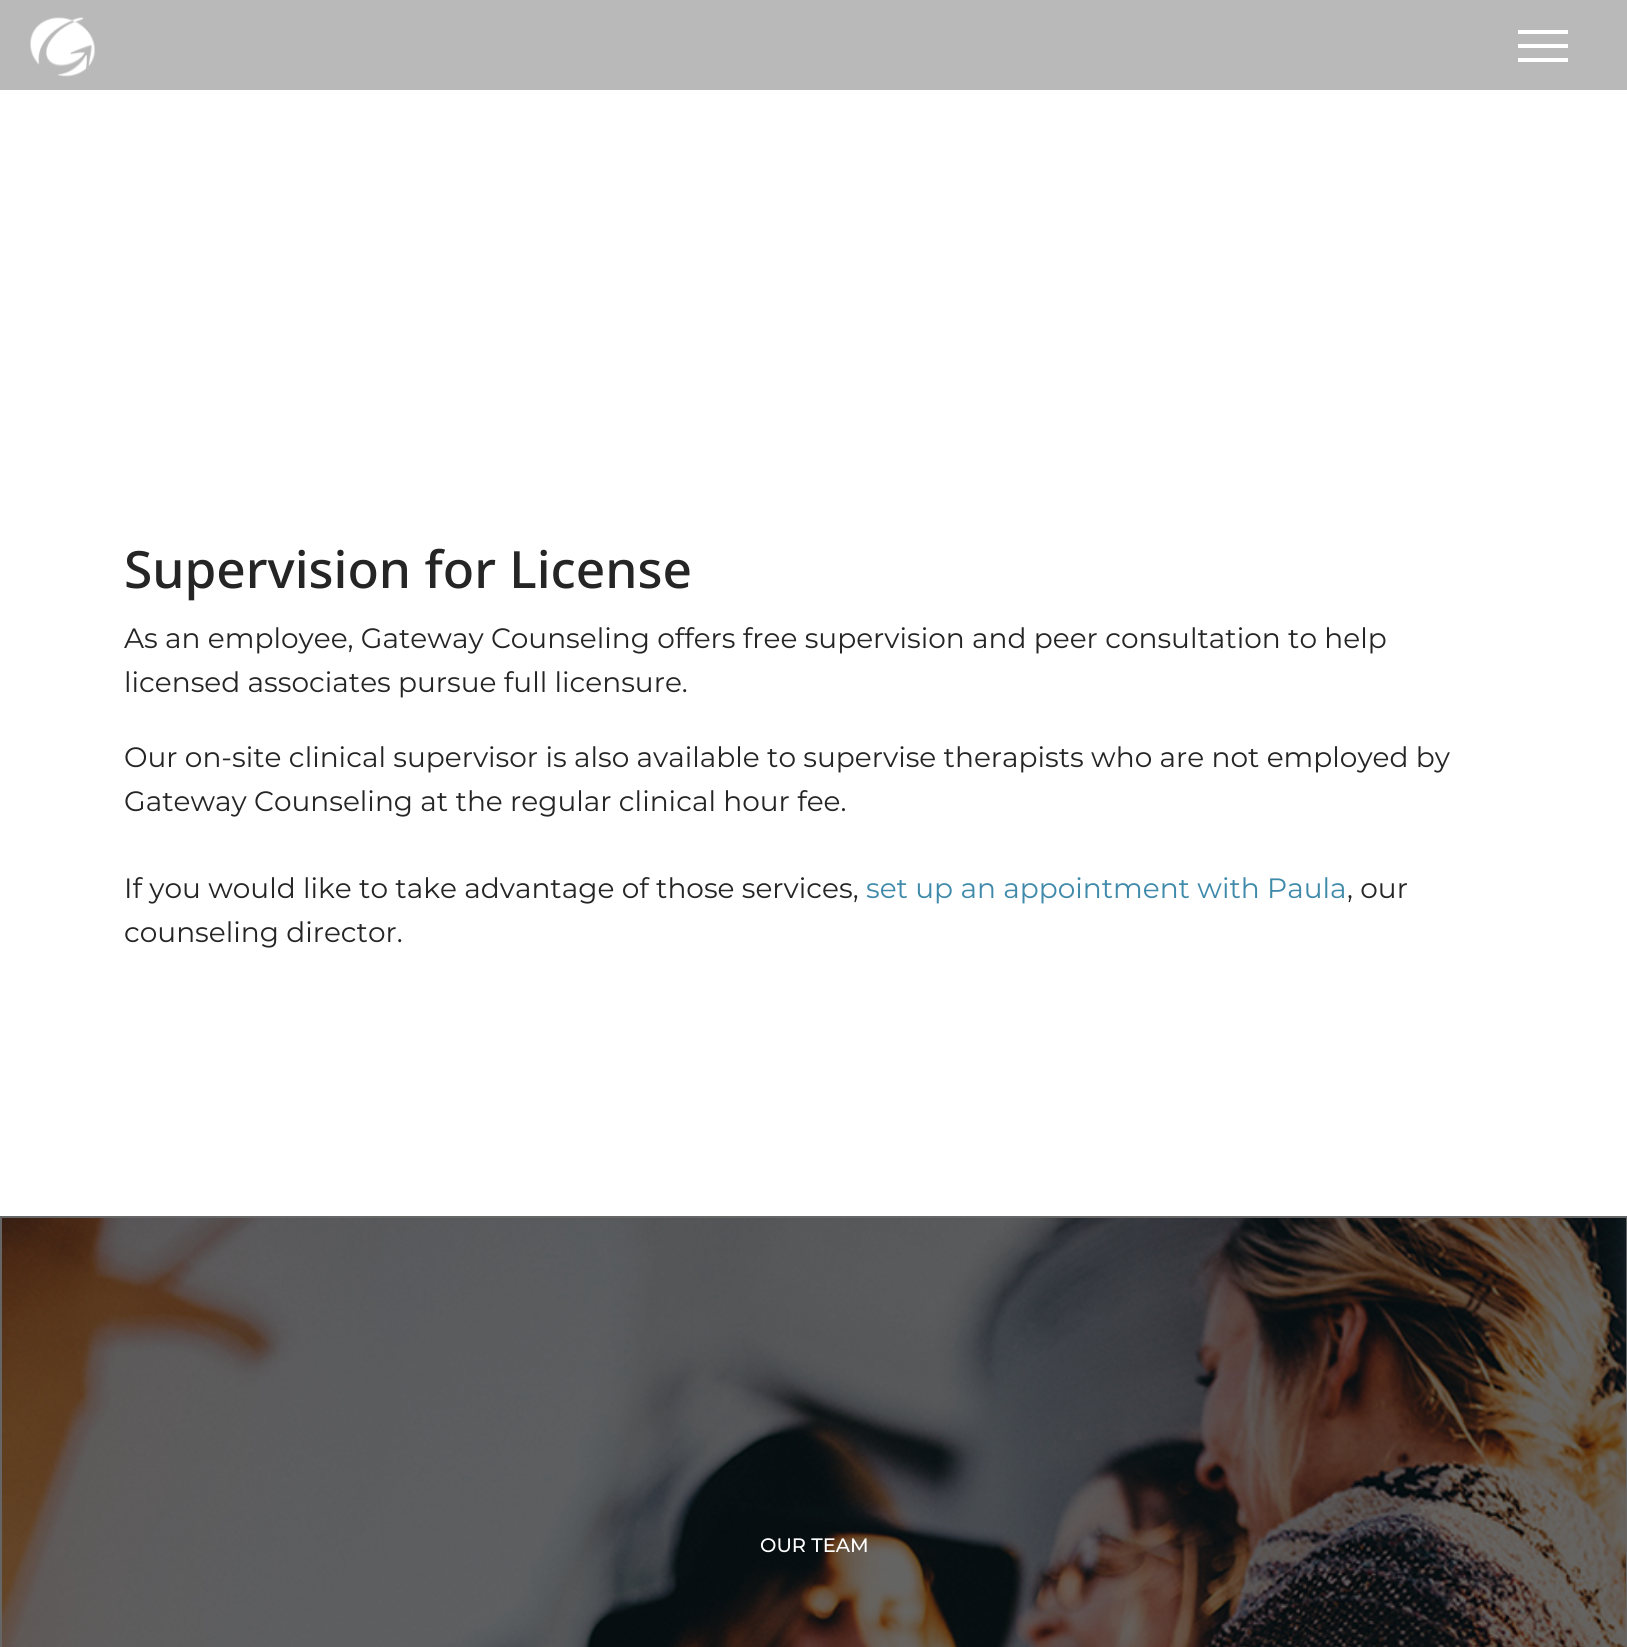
#include <cairo.h>
#include <math.h>
#include <stddef.h>


static void picture(cairo_t *cr, const char *path, double x, double y, double w, double h) {
    cairo_surface_t *image = cairo_image_surface_create_from_png(path);
    cairo_save(cr);
    cairo_set_source_surface(cr, image, x, y);
    cairo_rectangle(cr, x, y, w, h);
    cairo_fill(cr);
    cairo_restore(cr);
    cairo_surface_destroy(image);
}

int main(void) {
    cairo_surface_t *surface = cairo_image_surface_create(CAIRO_FORMAT_RGB24, 1627, 1647);
    cairo_t *cr = cairo_create(surface);
    cairo_font_options_t *options = cairo_font_options_create();
    cairo_font_options_set_hint_metrics(options, CAIRO_HINT_METRICS_OFF);
    cairo_font_options_set_hint_style(options, CAIRO_HINT_STYLE_NONE);
    cairo_set_font_options(cr, options);
    cairo_set_miter_limit(cr, 4);
    cairo_set_source_rgb(cr, 1, 1, 1);
    cairo_paint(cr);
    cairo_set_source_rgb(cr, 0.725, 0.725, 0.725);
    cairo_rectangle(cr, 0, 0, 1627, 90);
    cairo_fill(cr);
    picture(cr, "img1.png", 30, 17, 65, 60);
    cairo_set_source_rgb(cr, 1, 1, 1);
    cairo_rectangle(cr, 1518, 30, 50, 4);
    cairo_fill(cr);
    cairo_rectangle(cr, 1518, 44, 50, 4);
    cairo_fill(cr);
    cairo_rectangle(cr, 1518, 58, 50, 4);
    cairo_fill(cr);
    cairo_select_font_face(cr, "Noto Sans Medium", CAIRO_FONT_SLANT_NORMAL, CAIRO_FONT_WEIGHT_NORMAL);
    cairo_set_font_size(cr, 51.4);
    cairo_set_source_rgb(cr, 0.145, 0.145, 0.145);
    cairo_move_to(cr, 124, 588);
    cairo_show_text(cr, "Supervision for License");
    cairo_select_font_face(cr, "Montserrat", CAIRO_FONT_SLANT_NORMAL, CAIRO_FONT_WEIGHT_NORMAL);
    cairo_set_font_size(cr, 28);
    cairo_move_to(cr, 124, 648);
    cairo_show_text(cr, "As an employee, Gateway Counseling offers free supervision and peer consultation to help");
    cairo_move_to(cr, 124, 692);
    cairo_show_text(cr, "licensed associates pursue full licensure.");
    cairo_move_to(cr, 124, 767);
    cairo_show_text(cr, "Our on-site clinical supervisor is also available to supervise therapists who are not employed by");
    cairo_move_to(cr, 124, 811);
    cairo_show_text(cr, "Gateway Counseling at the regular clinical hour fee.");
    cairo_move_to(cr, 124, 898);
    cairo_show_text(cr, "If you would like to take advantage of those services,");
    cairo_set_source_rgb(cr, 0.247, 0.541, 0.667);
    cairo_move_to(cr, 866, 898);
    cairo_show_text(cr, "set up an appointment with Paula");
    cairo_set_source_rgb(cr, 0.145, 0.145, 0.145);
    cairo_move_to(cr, 1347, 898);
    cairo_show_text(cr, ", our");
    cairo_move_to(cr, 124, 942);
    cairo_show_text(cr, "counseling director.");
    cairo_set_source_rgb(cr, 0, 0, 0);
    cairo_rectangle(cr, 1, 1217, 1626, 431);
    cairo_fill_preserve(cr);
    cairo_set_source_rgb(cr, 0.4, 0.4, 0.4);
    cairo_stroke(cr);
    picture(cr, "img2.png", 2, 1218, 1624, 429);
    cairo_select_font_face(cr, "Montserrat Medium", CAIRO_FONT_SLANT_NORMAL, CAIRO_FONT_WEIGHT_NORMAL);
    cairo_set_font_size(cr, 19.5);
    cairo_set_source_rgb(cr, 1, 1, 1);
    cairo_move_to(cr, 760, 1552);
    cairo_show_text(cr, "OUR TEAM");
    cairo_surface_write_to_png(surface, "page.png");
    cairo_font_options_destroy(options);
    cairo_destroy(cr);
    cairo_surface_destroy(surface);
    return 0;
}
